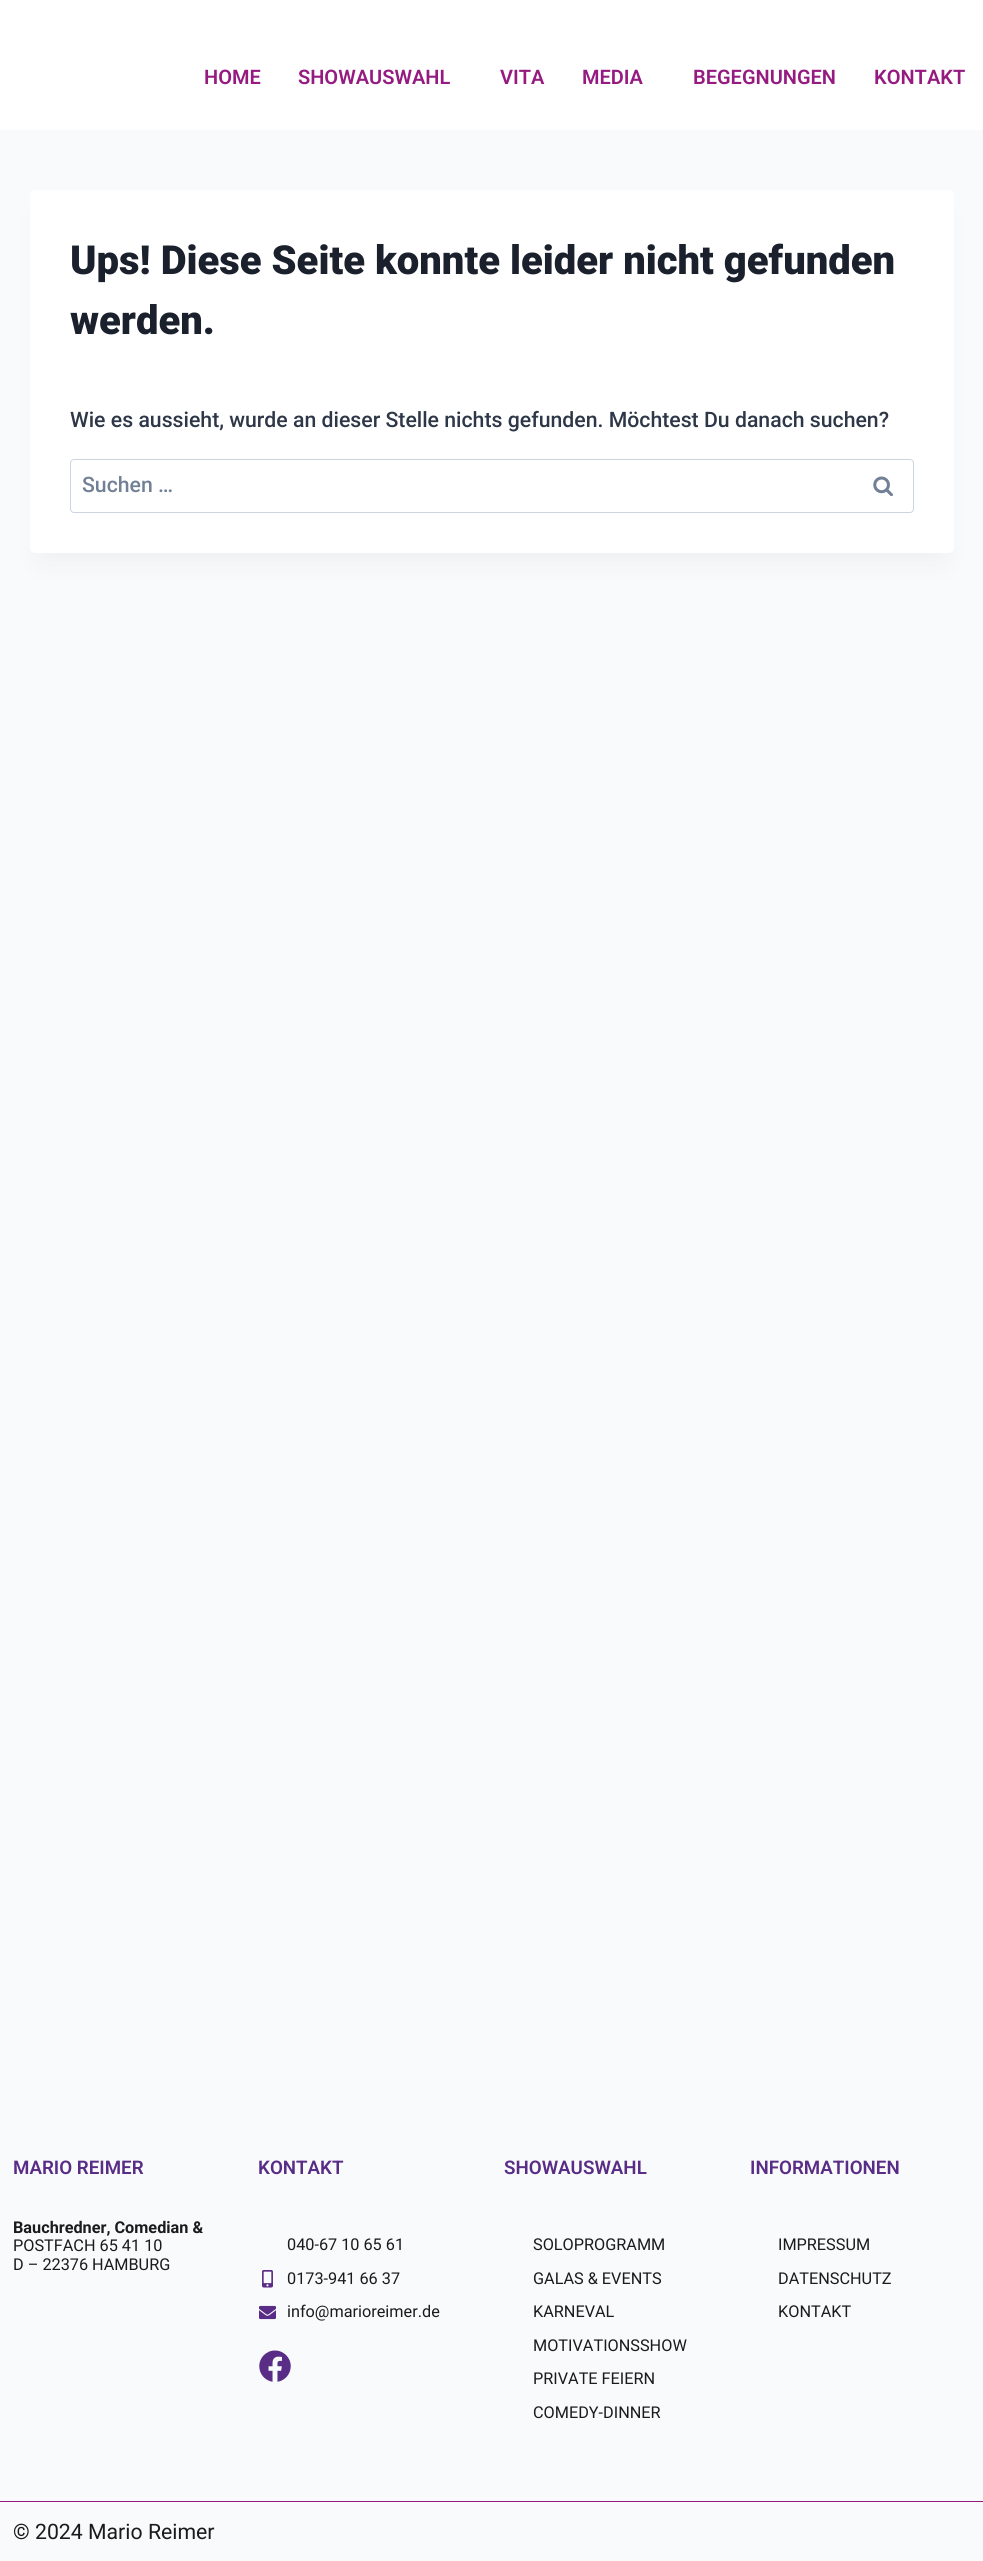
#include <cairo.h>
#include <math.h>
#include <stddef.h>


static void round_rect(cairo_t *cr, double x, double y, double w, double h, double r) {
    cairo_new_sub_path(cr);
    cairo_arc(cr, x + w - r, y + h - r, r, 0, M_PI / 2);
    cairo_arc(cr, x + r, y + h - r, r, M_PI / 2, M_PI);
    cairo_arc(cr, x + r, y + r, r, M_PI, 1.5 * M_PI);
    cairo_arc(cr, x + w - r, y + r, r, 1.5 * M_PI, 2 * M_PI);
    cairo_close_path(cr);
}

static void shadow(cairo_t *cr, double x, double y, double w, double h, double r, double blur, double alpha) {
    cairo_push_group_with_content(cr, CAIRO_CONTENT_ALPHA);
    cairo_set_operator(cr, CAIRO_OPERATOR_SOURCE);
    for (int i = 15; i >= -15 && fmin(w, h) + blur * i / 3 > 0; i -= 2) {
        double e = blur * i / 6;
        cairo_set_source_rgba(cr, 0, 0, 0, alpha * erfc((i - 1) / 8.5) / 2);
        round_rect(cr, x - e, y - e, w + 2 * e, h + 2 * e, fmax(0, fmin(r + e + blur * .6, fmin(w, h) / 2 + e)));
        cairo_fill(cr);
    }
    cairo_pattern_t *soft = cairo_pop_group(cr);
    cairo_mask(cr, soft);
    cairo_pattern_destroy(soft);
}

static void picture(cairo_t *cr, const char *path, double x, double y, double w, double h) {
    cairo_surface_t *image = cairo_image_surface_create_from_png(path);
    cairo_save(cr);
    cairo_set_source_surface(cr, image, x, y);
    cairo_rectangle(cr, x, y, w, h);
    cairo_fill(cr);
    cairo_restore(cr);
    cairo_surface_destroy(image);
}

int main(void) {
    cairo_surface_t *surface = cairo_image_surface_create(CAIRO_FORMAT_RGB24, 983, 2561);
    cairo_t *cr = cairo_create(surface);
    cairo_font_options_t *options = cairo_font_options_create();
    cairo_font_options_set_hint_metrics(options, CAIRO_HINT_METRICS_OFF);
    cairo_font_options_set_hint_style(options, CAIRO_HINT_STYLE_NONE);
    cairo_set_font_options(cr, options);
    cairo_set_miter_limit(cr, 4);
    cairo_set_source_rgb(cr, 0.969, 0.98, 0.988);
    cairo_paint(cr);
    cairo_set_source_rgb(cr, 1, 1, 1);
    cairo_rectangle(cr, 0, 0, 983, 130);
    cairo_fill(cr);
    cairo_select_font_face(cr, "Roboto SemiBold", CAIRO_FONT_SLANT_NORMAL, CAIRO_FONT_WEIGHT_NORMAL);
    cairo_set_font_size(cr, 20);
    cairo_set_source_rgb(cr, 0.584, 0.106, 0.506);
    cairo_move_to(cr, 204, 84);
    cairo_show_text(cr, "HOME");
    cairo_move_to(cr, 298, 84);
    cairo_show_text(cr, "SHOWAUSWAHL");
    cairo_move_to(cr, 500, 84);
    cairo_show_text(cr, "VITA");
    cairo_move_to(cr, 582, 84);
    cairo_show_text(cr, "MEDIA");
    cairo_move_to(cr, 693, 84);
    cairo_show_text(cr, "BEGEGNUNGEN");
    cairo_move_to(cr, 874, 84);
    cairo_show_text(cr, "KONTAKT");
    cairo_set_source_rgb(cr, 0, 0, 0);
    shadow(cr, 43, 221, 898, 338, 0, 15.5, 0.05);
    cairo_set_source_rgb(cr, 1, 1, 1);
    round_rect(cr, 30, 190, 924, 363, 5);
    cairo_fill(cr);
    cairo_select_font_face(cr, "Roboto Black", CAIRO_FONT_SLANT_NORMAL, CAIRO_FONT_WEIGHT_NORMAL);
    cairo_set_font_size(cr, 40);
    cairo_set_source_rgb(cr, 0.102, 0.125, 0.173);
    cairo_move_to(cr, 70, 274);
    cairo_show_text(cr, "Ups! Diese Seite konnte leider nicht gefunden");
    cairo_move_to(cr, 70, 334);
    cairo_show_text(cr, "werden.");
    cairo_select_font_face(cr, "Roboto Medium", CAIRO_FONT_SLANT_NORMAL, CAIRO_FONT_WEIGHT_NORMAL);
    cairo_set_font_size(cr, 21.25);
    cairo_set_source_rgb(cr, 0.176, 0.216, 0.282);
    cairo_move_to(cr, 70, 427);
    cairo_show_text(cr, "Wie es aussieht, wurde an dieser Stelle nichts gefunden. Möchtest Du danach suchen?");
    round_rect(cr, 70.5, 459.5, 843, 53, 3.5);
    cairo_set_source_rgb(cr, 0.796, 0.835, 0.878);
    cairo_set_line_width(cr, 1);
    cairo_stroke(cr);
    cairo_set_source_rgb(cr, 0.443, 0.502, 0.588);
    cairo_move_to(cr, 82, 492);
    cairo_show_text(cr, "Suchen …");
    picture(cr, "img1.png", 873, 476, 20, 20);
    cairo_select_font_face(cr, "Roboto SemiBold", CAIRO_FONT_SLANT_NORMAL, CAIRO_FONT_WEIGHT_NORMAL);
    cairo_set_font_size(cr, 18.75);
    cairo_set_source_rgb(cr, 0.349, 0.173, 0.525);
    cairo_move_to(cr, 13, 2174);
    cairo_show_text(cr, "MARIO REIMER");
    cairo_select_font_face(cr, "Roboto", CAIRO_FONT_SLANT_NORMAL, CAIRO_FONT_WEIGHT_BOLD);
    cairo_set_font_size(cr, 16.25);
    cairo_set_source_rgb(cr, 0.106, 0.106, 0.106);
    cairo_move_to(cr, 13, 2233);
    cairo_show_text(cr, "Bauchredner, Comedian &");
    cairo_select_font_face(cr, "Roboto", CAIRO_FONT_SLANT_NORMAL, CAIRO_FONT_WEIGHT_NORMAL);
    cairo_move_to(cr, 13, 2251);
    cairo_show_text(cr, "POSTFACH 65 41 10");
    cairo_move_to(cr, 13, 2270);
    cairo_show_text(cr, "D – 22376 HAMBURG");
    cairo_select_font_face(cr, "Roboto SemiBold", CAIRO_FONT_SLANT_NORMAL, CAIRO_FONT_WEIGHT_NORMAL);
    cairo_set_font_size(cr, 18.75);
    cairo_set_source_rgb(cr, 0.349, 0.173, 0.525);
    cairo_move_to(cr, 258, 2174);
    cairo_show_text(cr, "KONTAKT");
    cairo_select_font_face(cr, "Roboto", CAIRO_FONT_SLANT_NORMAL, CAIRO_FONT_WEIGHT_NORMAL);
    cairo_set_font_size(cr, 16.25);
    cairo_set_source_rgb(cr, 0.106, 0.106, 0.106);
    cairo_move_to(cr, 287, 2250);
    cairo_show_text(cr, "040-67 10 65 61");
    picture(cr, "img2.png", 262, 2270, 11, 18);
    cairo_move_to(cr, 287, 2284);
    cairo_show_text(cr, "0173-941 66 37");
    picture(cr, "img3.png", 259, 2305, 17, 15);
    cairo_move_to(cr, 287, 2317);
    cairo_show_text(cr, "info@marioreimer.de");
    picture(cr, "img4.png", 259, 2350, 32, 32);
    cairo_select_font_face(cr, "Roboto SemiBold", CAIRO_FONT_SLANT_NORMAL, CAIRO_FONT_WEIGHT_NORMAL);
    cairo_set_font_size(cr, 18.75);
    cairo_set_source_rgb(cr, 0.349, 0.173, 0.525);
    cairo_move_to(cr, 504, 2174);
    cairo_show_text(cr, "SHOWAUSWAHL");
    cairo_select_font_face(cr, "Roboto", CAIRO_FONT_SLANT_NORMAL, CAIRO_FONT_WEIGHT_NORMAL);
    cairo_set_font_size(cr, 16.25);
    cairo_set_source_rgb(cr, 0.106, 0.106, 0.106);
    cairo_move_to(cr, 533, 2250);
    cairo_show_text(cr, "SOLOPROGRAMM");
    cairo_move_to(cr, 533, 2284);
    cairo_show_text(cr, "GALAS & EVENTS");
    cairo_move_to(cr, 533, 2317);
    cairo_show_text(cr, "KARNEVAL");
    cairo_move_to(cr, 533, 2351);
    cairo_show_text(cr, "MOTIVATIONSSHOW");
    cairo_move_to(cr, 533, 2384);
    cairo_show_text(cr, "PRIVATE FEIERN");
    cairo_move_to(cr, 533, 2418);
    cairo_show_text(cr, "COMEDY-DINNER");
    cairo_select_font_face(cr, "Roboto SemiBold", CAIRO_FONT_SLANT_NORMAL, CAIRO_FONT_WEIGHT_NORMAL);
    cairo_set_font_size(cr, 18.75);
    cairo_set_source_rgb(cr, 0.349, 0.173, 0.525);
    cairo_move_to(cr, 750, 2174);
    cairo_show_text(cr, "INFORMATIONEN");
    cairo_select_font_face(cr, "Roboto", CAIRO_FONT_SLANT_NORMAL, CAIRO_FONT_WEIGHT_NORMAL);
    cairo_set_font_size(cr, 16.25);
    cairo_set_source_rgb(cr, 0.106, 0.106, 0.106);
    cairo_move_to(cr, 778, 2250);
    cairo_show_text(cr, "IMPRESSUM");
    cairo_move_to(cr, 778, 2284);
    cairo_show_text(cr, "DATENSCHUTZ");
    cairo_move_to(cr, 778, 2317);
    cairo_show_text(cr, "KONTAKT");
    cairo_set_source_rgb(cr, 0.584, 0.106, 0.506);
    cairo_rectangle(cr, 0, 2501, 983, 1);
    cairo_fill(cr);
    cairo_set_font_size(cr, 21.25);
    cairo_set_source_rgb(cr, 0.106, 0.106, 0.106);
    cairo_move_to(cr, 13, 2539);
    cairo_show_text(cr, "© 2024 Mario Reimer");
    cairo_surface_write_to_png(surface, "page.png");
    cairo_font_options_destroy(options);
    cairo_destroy(cr);
    cairo_surface_destroy(surface);
    return 0;
}
